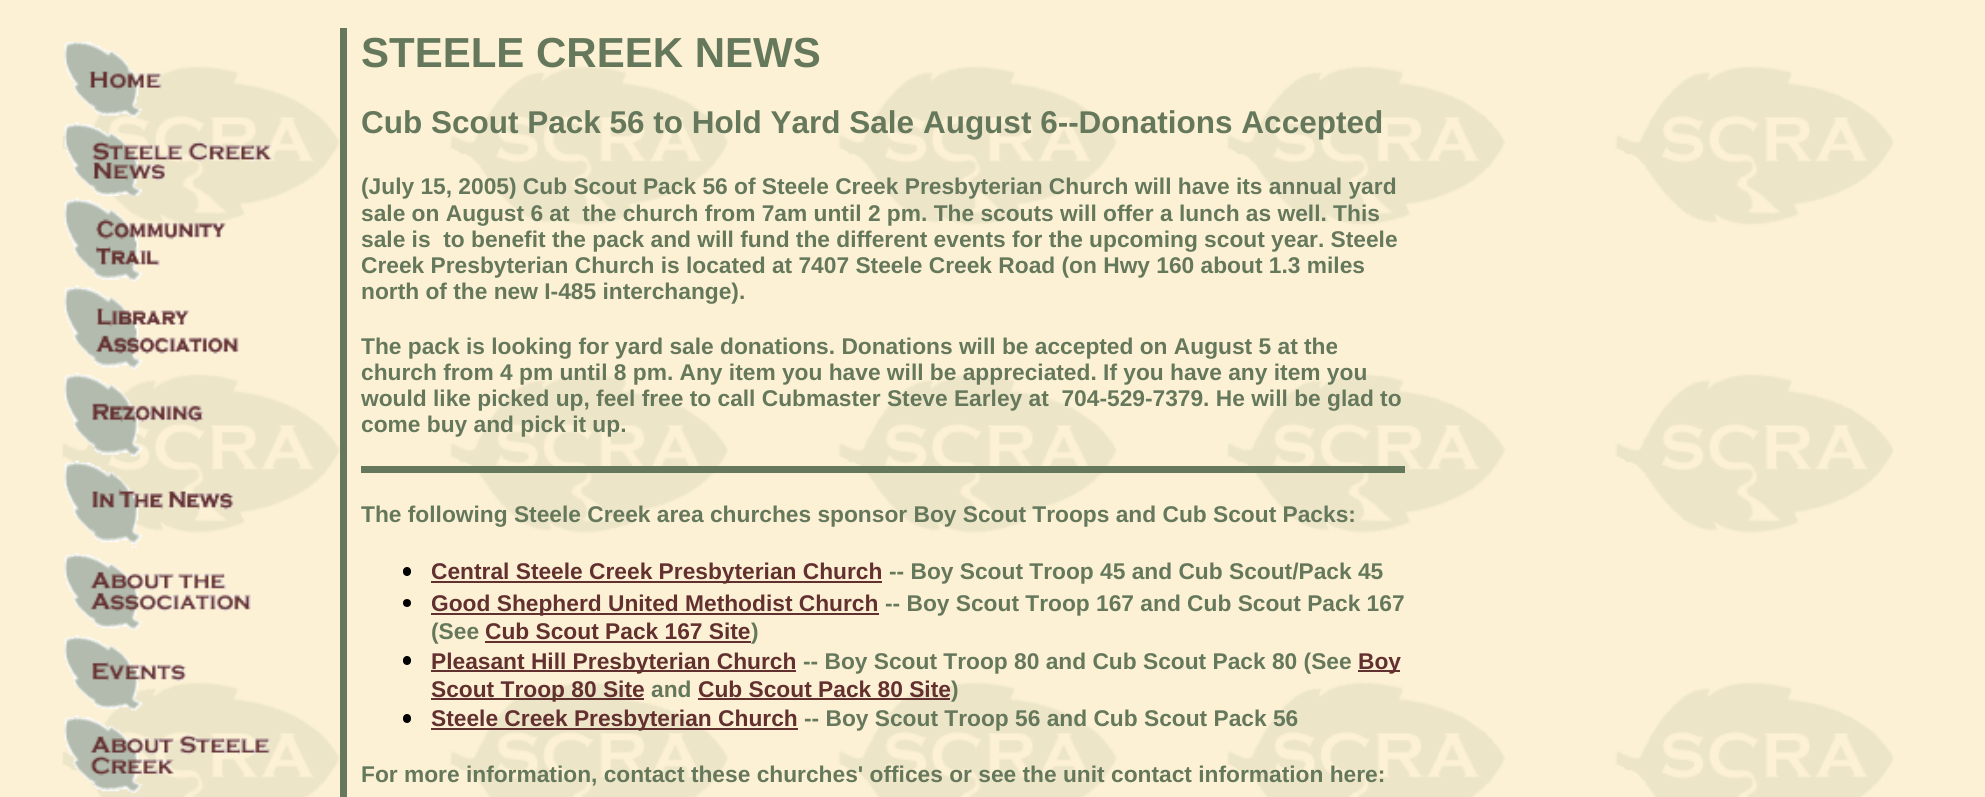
#include <cairo.h>
#include <math.h>
#include <stddef.h>


static void round_rect(cairo_t *cr, double x, double y, double w, double h, double r) {
    cairo_new_sub_path(cr);
    cairo_arc(cr, x + w - r, y + h - r, r, 0, M_PI / 2);
    cairo_arc(cr, x + r, y + h - r, r, M_PI / 2, M_PI);
    cairo_arc(cr, x + r, y + r, r, M_PI, 1.5 * M_PI);
    cairo_arc(cr, x + w - r, y + r, r, 1.5 * M_PI, 2 * M_PI);
    cairo_close_path(cr);
}

static void picture(cairo_t *cr, const char *path, double x, double y, double w, double h) {
    cairo_surface_t *image = cairo_image_surface_create_from_png(path);
    cairo_save(cr);
    cairo_set_source_surface(cr, image, x, y);
    cairo_rectangle(cr, x, y, w, h);
    cairo_fill(cr);
    cairo_restore(cr);
    cairo_surface_destroy(image);
}

int main(void) {
    cairo_surface_t *surface = cairo_image_surface_create(CAIRO_FORMAT_RGB24, 1985, 797);
    cairo_t *cr = cairo_create(surface);
    cairo_font_options_t *options = cairo_font_options_create();
    cairo_font_options_set_hint_metrics(options, CAIRO_HINT_METRICS_OFF);
    cairo_font_options_set_hint_style(options, CAIRO_HINT_STYLE_NONE);
    cairo_set_font_options(cr, options);
    cairo_set_miter_limit(cr, 4);
    cairo_set_source_rgb(cr, 0.988, 0.945, 0.831);
    cairo_paint(cr);
    picture(cr, "img1.png", 62, 66, 1832, 731);
    picture(cr, "img2.png", 64, 42, 98, 74);
    picture(cr, "img3.png", 64, 115, 208, 81);
    picture(cr, "img4.png", 64, 197, 163, 85);
    picture(cr, "img5.png", 64, 285, 175, 85);
    picture(cr, "img6.png", 64, 372, 140, 85);
    picture(cr, "img7.png", 64, 460, 170, 85);
    picture(cr, "img8.png", 64, 546, 187, 85);
    picture(cr, "img9.png", 64, 635, 122, 76);
    picture(cr, "img10.png", 64, 715, 206, 79);
    cairo_set_source_rgb(cr, 0.396, 0.471, 0.361);
    cairo_rectangle(cr, 340, 28, 7, 769);
    cairo_fill(cr);
    cairo_select_font_face(cr, "Liberation Sans", CAIRO_FONT_SLANT_NORMAL, CAIRO_FONT_WEIGHT_BOLD);
    cairo_set_font_size(cr, 42);
    cairo_move_to(cr, 361, 67);
    cairo_show_text(cr, "STEELE CREEK NEWS");
    cairo_set_font_size(cr, 31.5);
    cairo_move_to(cr, 361, 133);
    cairo_show_text(cr, "Cub Scout Pack 56 to Hold Yard Sale August 6--Donations Accepted");
    cairo_set_font_size(cr, 22.75);
    cairo_move_to(cr, 361, 194);
    cairo_show_text(cr, "(July 15, 2005) Cub Scout Pack 56 of Steele Creek Presbyterian Church will have its annual yard");
    cairo_move_to(cr, 361, 221);
    cairo_show_text(cr, "sale on August 6 at  the church from 7am until 2 pm. The scouts will offer a lunch as well. This");
    cairo_move_to(cr, 361, 247);
    cairo_show_text(cr, "sale is  to benefit the pack and will fund the different events for the upcoming scout year. Steele");
    cairo_move_to(cr, 361, 273);
    cairo_show_text(cr, "Creek Presbyterian Church is located at 7407 Steele Creek Road (on Hwy 160 about 1.3 miles");
    cairo_move_to(cr, 361, 299);
    cairo_show_text(cr, "north of the new I-485 interchange).");
    cairo_move_to(cr, 361, 354);
    cairo_show_text(cr, "The pack is looking for yard sale donations. Donations will be accepted on August 5 at the");
    cairo_move_to(cr, 361, 380);
    cairo_show_text(cr, "church from 4 pm until 8 pm. Any item you have will be appreciated. If you have any item you");
    cairo_move_to(cr, 361, 406);
    cairo_show_text(cr, "would like picked up, feel free to call Cubmaster Steve Earley at  704-529-7379. He will be glad to");
    cairo_move_to(cr, 361, 432);
    cairo_show_text(cr, "come buy and pick it up.");
    cairo_rectangle(cr, 361, 466, 1044, 7);
    cairo_fill(cr);
    cairo_move_to(cr, 361, 522);
    cairo_show_text(cr, "The following Steele Creek area churches sponsor Boy Scout Troops and Cub Scout Packs:");
    cairo_set_source_rgb(cr, 0, 0, 0);
    round_rect(cr, 403, 567, 8, 9, 4);
    cairo_fill(cr);
    cairo_set_source_rgb(cr, 0.388, 0.188, 0.188);
    cairo_rectangle(cr, 431, 581, 451, 2);
    cairo_fill(cr);
    cairo_move_to(cr, 431, 579);
    cairo_show_text(cr, "Central Steele Creek Presbyterian Church");
    cairo_set_source_rgb(cr, 0.396, 0.471, 0.361);
    cairo_move_to(cr, 889, 579);
    cairo_show_text(cr, "-- Boy Scout Troop 45 and Cub Scout/Pack 45");
    cairo_set_source_rgb(cr, 0, 0, 0);
    cairo_new_path(cr);
    cairo_arc(cr, 407, 603, 4, 0, 2 * M_PI);
    cairo_fill(cr);
    cairo_set_source_rgb(cr, 0.388, 0.188, 0.188);
    cairo_rectangle(cr, 431, 613, 448, 2);
    cairo_fill(cr);
    cairo_move_to(cr, 431, 611);
    cairo_show_text(cr, "Good Shepherd United Methodist Church");
    cairo_set_source_rgb(cr, 0.396, 0.471, 0.361);
    cairo_move_to(cr, 885, 611);
    cairo_show_text(cr, "-- Boy Scout Troop 167 and Cub Scout Pack 167");
    cairo_move_to(cr, 431, 639);
    cairo_show_text(cr, "(See");
    cairo_set_source_rgb(cr, 0.388, 0.188, 0.188);
    cairo_move_to(cr, 485, 639);
    cairo_show_text(cr, "Cub Scout Pack 167 Site");
    cairo_rectangle(cr, 485, 641, 266, 2);
    cairo_fill(cr);
    cairo_set_source_rgb(cr, 0.396, 0.471, 0.361);
    cairo_move_to(cr, 751, 639);
    cairo_show_text(cr, ")");
    cairo_set_source_rgb(cr, 0, 0, 0);
    round_rect(cr, 403, 656, 8, 9, 4);
    cairo_fill(cr);
    cairo_set_source_rgb(cr, 0.388, 0.188, 0.188);
    cairo_rectangle(cr, 431, 670, 365, 2);
    cairo_fill(cr);
    cairo_move_to(cr, 431, 669);
    cairo_show_text(cr, "Pleasant Hill Presbyterian Church");
    cairo_set_source_rgb(cr, 0.396, 0.471, 0.361);
    cairo_move_to(cr, 803, 669);
    cairo_show_text(cr, "-- Boy Scout Troop 80 and Cub Scout Pack 80 (See");
    cairo_set_source_rgb(cr, 0.388, 0.188, 0.188);
    cairo_rectangle(cr, 1358, 670, 42, 2);
    cairo_fill(cr);
    cairo_move_to(cr, 1358, 669);
    cairo_show_text(cr, "Boy");
    cairo_rectangle(cr, 431, 698, 213, 2);
    cairo_fill(cr);
    cairo_move_to(cr, 431, 697);
    cairo_show_text(cr, "Scout Troop 80 Site");
    cairo_set_source_rgb(cr, 0.396, 0.471, 0.361);
    cairo_move_to(cr, 651, 697);
    cairo_show_text(cr, "and");
    cairo_set_source_rgb(cr, 0.388, 0.188, 0.188);
    cairo_move_to(cr, 698, 697);
    cairo_show_text(cr, "Cub Scout Pack 80 Site");
    cairo_set_source_rgb(cr, 0.396, 0.471, 0.361);
    cairo_move_to(cr, 951, 697);
    cairo_show_text(cr, ")");
    cairo_set_source_rgb(cr, 0.388, 0.188, 0.188);
    cairo_rectangle(cr, 698, 698, 252, 2);
    cairo_fill(cr);
    cairo_set_source_rgb(cr, 0, 0, 0);
    round_rect(cr, 403, 714, 8, 9, 4);
    cairo_fill(cr);
    cairo_set_source_rgb(cr, 0.388, 0.188, 0.188);
    cairo_rectangle(cr, 431, 728, 367, 2);
    cairo_fill(cr);
    cairo_move_to(cr, 431, 726);
    cairo_show_text(cr, "Steele Creek Presbyterian Church");
    cairo_set_source_rgb(cr, 0.396, 0.471, 0.361);
    cairo_move_to(cr, 804, 726);
    cairo_show_text(cr, "-- Boy Scout Troop 56 and Cub Scout Pack 56");
    cairo_move_to(cr, 361, 782);
    cairo_show_text(cr, "For more information, contact these churches' offices or see the unit contact information here:");
    cairo_surface_write_to_png(surface, "page.png");
    cairo_font_options_destroy(options);
    cairo_destroy(cr);
    cairo_surface_destroy(surface);
    return 0;
}
